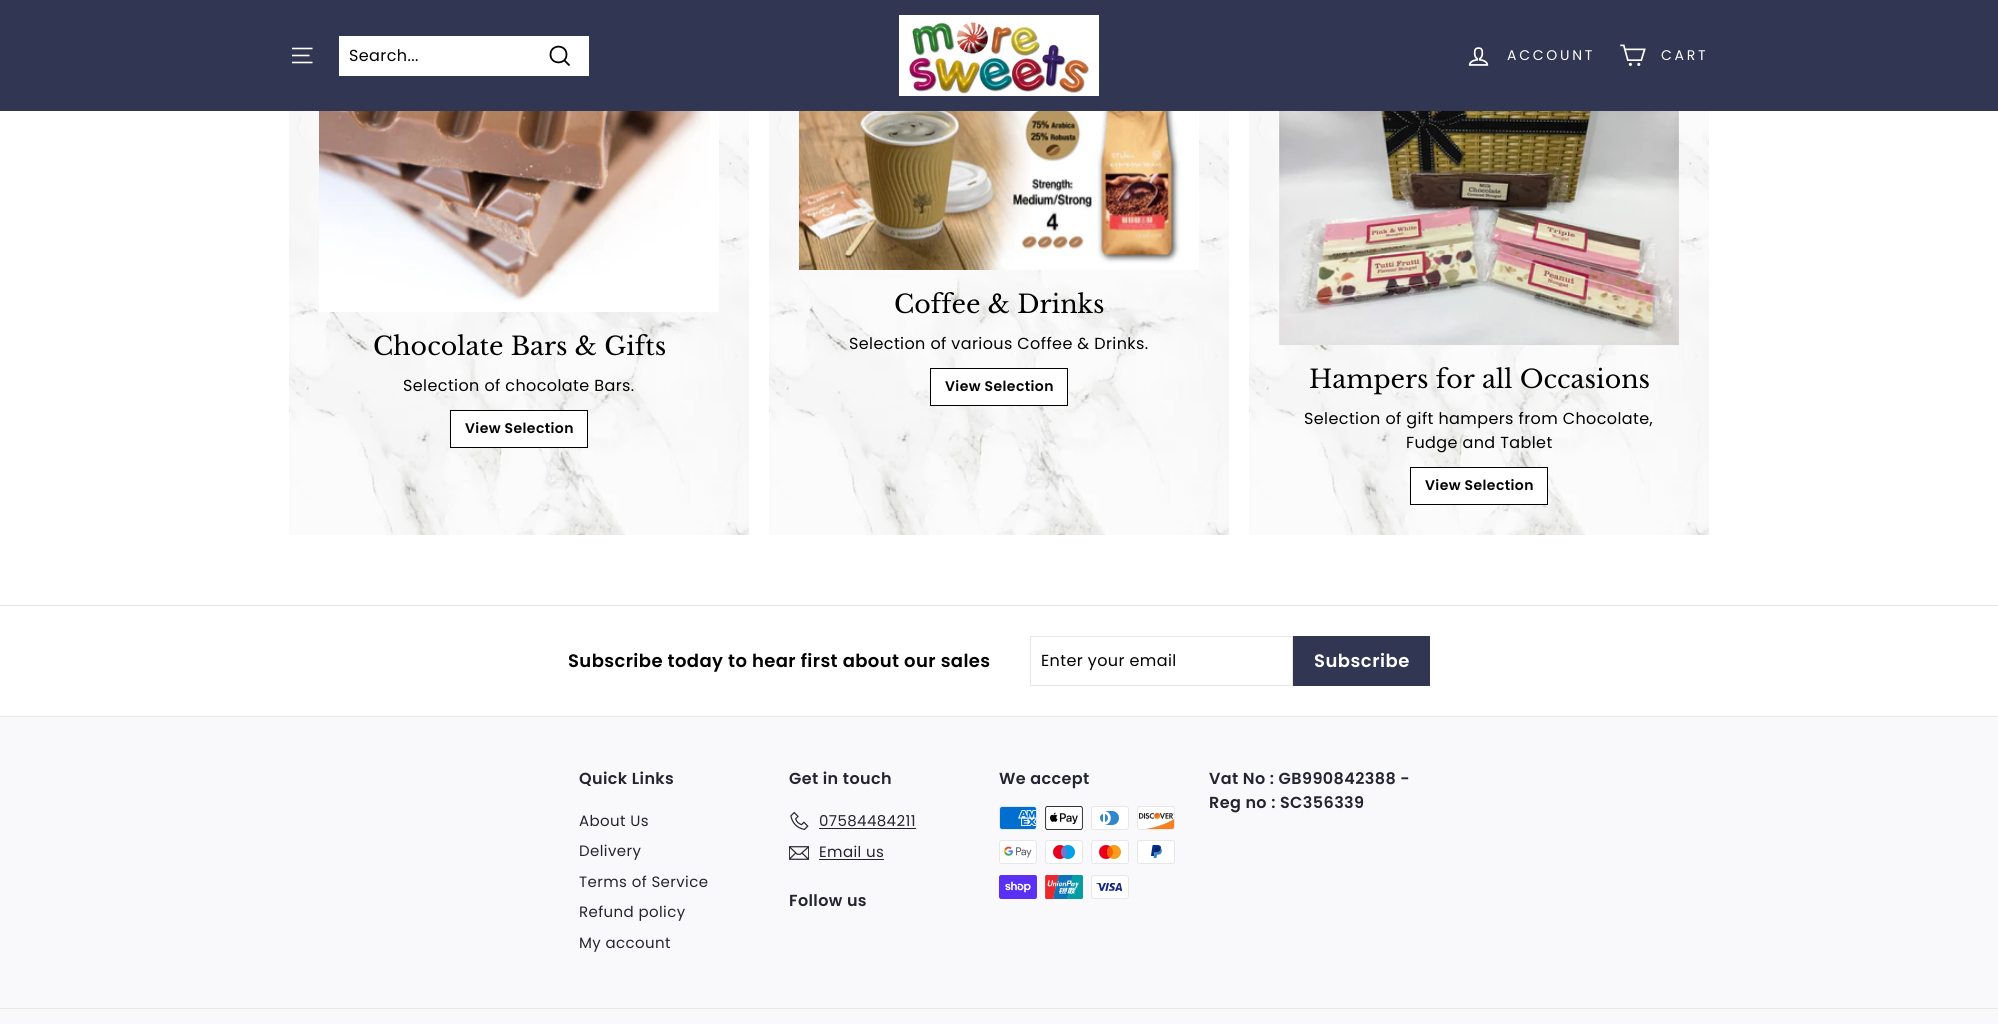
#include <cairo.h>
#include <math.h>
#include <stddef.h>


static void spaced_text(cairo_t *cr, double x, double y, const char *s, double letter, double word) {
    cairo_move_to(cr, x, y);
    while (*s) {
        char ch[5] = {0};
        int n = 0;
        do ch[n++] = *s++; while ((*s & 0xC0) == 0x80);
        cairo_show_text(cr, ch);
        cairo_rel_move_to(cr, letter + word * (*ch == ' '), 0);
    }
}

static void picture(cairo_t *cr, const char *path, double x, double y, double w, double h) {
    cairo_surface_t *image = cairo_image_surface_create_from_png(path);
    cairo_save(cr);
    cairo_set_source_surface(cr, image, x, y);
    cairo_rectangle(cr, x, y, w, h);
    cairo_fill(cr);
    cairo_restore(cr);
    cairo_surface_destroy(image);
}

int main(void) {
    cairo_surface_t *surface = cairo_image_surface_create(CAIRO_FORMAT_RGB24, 1998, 1024);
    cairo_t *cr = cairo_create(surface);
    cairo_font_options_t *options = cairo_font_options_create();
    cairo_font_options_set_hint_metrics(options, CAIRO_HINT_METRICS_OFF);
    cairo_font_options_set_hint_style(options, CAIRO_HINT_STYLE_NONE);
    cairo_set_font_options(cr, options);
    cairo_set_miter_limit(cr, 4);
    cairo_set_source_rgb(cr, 1, 1, 1);
    cairo_paint(cr);
    cairo_set_source_rgb(cr, 0.192, 0.212, 0.322);
    cairo_rectangle(cr, 0, 0, 1998, 111);
    cairo_fill(cr);
    cairo_new_path(cr);
    cairo_move_to(cr, 292, 48.5);
    cairo_line_to(cr, 312.5, 48.5);
    cairo_move_to(cr, 292, 55.5);
    cairo_line_to(cr, 309.5, 55.5);
    cairo_move_to(cr, 292, 62.5);
    cairo_line_to(cr, 312.5, 62.5);
    cairo_set_source_rgb(cr, 1, 1, 1);
    cairo_set_line_width(cr, 1.6);
    cairo_stroke(cr);
    cairo_rectangle(cr, 339, 36, 250, 40);
    cairo_fill(cr);
    cairo_select_font_face(cr, "Poppins", CAIRO_FONT_SLANT_NORMAL, CAIRO_FONT_WEIGHT_NORMAL);
    cairo_set_font_size(cr, 16);
    cairo_set_source_rgb(cr, 0, 0, 0);
    spaced_text(cr, 349, 61, "Search...", 0.4, 0);
    cairo_new_path(cr);
    cairo_move_to(cr, 566.5, 54.5);
    cairo_curve_to(cr, 566.5, 65, 550.5, 65, 550.5, 54.5);
    cairo_curve_to(cr, 550.5, 44, 566.5, 44, 566.5, 54.5);
    cairo_close_path(cr);
    cairo_move_to(cr, 569.5, 65.5);
    cairo_line_to(cr, 564.5, 60.5);
    cairo_set_line_width(cr, 1.8);
    cairo_stroke(cr);
    picture(cr, "img1.png", 899, 15, 200, 81);
    picture(cr, "img2.png", 1468, 47, 21, 19);
    cairo_set_font_size(cr, 14);
    cairo_set_source_rgb(cr, 1, 1, 1);
    spaced_text(cr, 1507, 60, "ACCOUNT", 2.75, 0);
    picture(cr, "img3.png", 1620, 44, 26, 22);
    spaced_text(cr, 1661, 60, "CART", 2.75, 0);
    picture(cr, "img4.png", 289, 111, 460, 424);
    cairo_rectangle(cr, 319, 111, 400, 201);
    cairo_fill(cr);
    picture(cr, "img5.png", 319, 111, 391, 191);
    cairo_select_font_face(cr, "Libre Baskerville", CAIRO_FONT_SLANT_NORMAL, CAIRO_FONT_WEIGHT_NORMAL);
    cairo_set_font_size(cr, 25.25);
    cairo_set_source_rgb(cr, 0, 0, 0);
    cairo_move_to(cr, 373, 355);
    cairo_show_text(cr, "Chocolate Bars & Gifts");
    cairo_select_font_face(cr, "Poppins", CAIRO_FONT_SLANT_NORMAL, CAIRO_FONT_WEIGHT_NORMAL);
    cairo_set_font_size(cr, 16);
    spaced_text(cr, 403, 391, "Selection of chocolate Bars.", 0.4, 0);
    cairo_set_source_rgb(cr, 1, 1, 1);
    cairo_rectangle(cr, 450.5, 410.5, 137, 37);
    cairo_fill_preserve(cr);
    cairo_set_source_rgb(cr, 0, 0, 0);
    cairo_set_line_width(cr, 1);
    cairo_stroke(cr);
    cairo_select_font_face(cr, "Poppins SemiBold", CAIRO_FONT_SLANT_NORMAL, CAIRO_FONT_WEIGHT_NORMAL);
    cairo_set_font_size(cr, 14);
    spaced_text(cr, 465, 433, "View Selection", 0.4, 0);
    picture(cr, "img4.png", 769, 111, 460, 424);
    cairo_set_source_rgb(cr, 1, 1, 1);
    cairo_rectangle(cr, 1186, 111, 13, 159);
    cairo_fill(cr);
    picture(cr, "img6.png", 799, 111, 387, 159);
    cairo_select_font_face(cr, "Libre Baskerville", CAIRO_FONT_SLANT_NORMAL, CAIRO_FONT_WEIGHT_NORMAL);
    cairo_set_font_size(cr, 25.25);
    cairo_set_source_rgb(cr, 0, 0, 0);
    cairo_move_to(cr, 894, 313);
    cairo_show_text(cr, "Coffee & Drinks");
    cairo_select_font_face(cr, "Poppins", CAIRO_FONT_SLANT_NORMAL, CAIRO_FONT_WEIGHT_NORMAL);
    cairo_set_font_size(cr, 16);
    spaced_text(cr, 849, 349, "Selection of various Coffee & Drinks.", 0.4, 0);
    cairo_set_source_rgb(cr, 1, 1, 1);
    cairo_rectangle(cr, 930.5, 368.5, 137, 37);
    cairo_fill_preserve(cr);
    cairo_set_source_rgb(cr, 0, 0, 0);
    cairo_stroke(cr);
    cairo_select_font_face(cr, "Poppins SemiBold", CAIRO_FONT_SLANT_NORMAL, CAIRO_FONT_WEIGHT_NORMAL);
    cairo_set_font_size(cr, 14);
    spaced_text(cr, 945, 391, "View Selection", 0.4, 0);
    picture(cr, "img4.png", 1249, 111, 460, 424);
    picture(cr, "img7.png", 1279, 111, 400, 234);
    cairo_select_font_face(cr, "Libre Baskerville", CAIRO_FONT_SLANT_NORMAL, CAIRO_FONT_WEIGHT_NORMAL);
    cairo_set_font_size(cr, 25.25);
    cairo_move_to(cr, 1309, 388);
    cairo_show_text(cr, "Hampers for all Occasions");
    cairo_select_font_face(cr, "Poppins", CAIRO_FONT_SLANT_NORMAL, CAIRO_FONT_WEIGHT_NORMAL);
    cairo_set_font_size(cr, 16);
    spaced_text(cr, 1304, 424, "Selection of gift hampers from Chocolate,", 0.4, 0);
    spaced_text(cr, 1406, 448, "Fudge and Tablet", 0.4, 0);
    cairo_set_source_rgb(cr, 1, 1, 1);
    cairo_rectangle(cr, 1410.5, 467.5, 137, 37);
    cairo_fill_preserve(cr);
    cairo_set_source_rgb(cr, 0, 0, 0);
    cairo_stroke(cr);
    cairo_select_font_face(cr, "Poppins SemiBold", CAIRO_FONT_SLANT_NORMAL, CAIRO_FONT_WEIGHT_NORMAL);
    cairo_set_font_size(cr, 14);
    spaced_text(cr, 1425, 490, "View Selection", 0.4, 0);
    cairo_set_source_rgb(cr, 0.91, 0.91, 0.882);
    cairo_rectangle(cr, 0, 605, 1998, 1);
    cairo_fill(cr);
    cairo_set_font_size(cr, 18);
    cairo_set_source_rgb(cr, 0, 0, 0);
    spaced_text(cr, 568, 667, "Subscribe today to hear first about our sales", 0.4, 0);
    cairo_rectangle(cr, 1030.5, 636.5, 262, 49);
    cairo_set_source_rgb(cr, 0.91, 0.91, 0.882);
    cairo_stroke(cr);
    cairo_select_font_face(cr, "Poppins", CAIRO_FONT_SLANT_NORMAL, CAIRO_FONT_WEIGHT_NORMAL);
    cairo_set_font_size(cr, 16);
    cairo_set_source_rgb(cr, 0, 0, 0);
    spaced_text(cr, 1041, 666, "Enter your email", 0.4, 0);
    cairo_set_source_rgb(cr, 0.192, 0.212, 0.322);
    cairo_rectangle(cr, 1293, 636, 137, 50);
    cairo_fill(cr);
    cairo_select_font_face(cr, "Poppins SemiBold", CAIRO_FONT_SLANT_NORMAL, CAIRO_FONT_WEIGHT_NORMAL);
    cairo_set_font_size(cr, 18);
    cairo_set_source_rgb(cr, 1, 1, 1);
    spaced_text(cr, 1314, 667, "Subscribe", 0.5, 0);
    cairo_set_source_rgb(cr, 0.976, 0.976, 0.984);
    cairo_rectangle(cr, 0, 717, 1998, 307);
    cairo_fill(cr);
    cairo_set_source_rgb(cr, 0.91, 0.91, 0.882);
    cairo_rectangle(cr, 0, 716, 1998, 1);
    cairo_fill(cr);
    cairo_set_font_size(cr, 16);
    cairo_set_source_rgb(cr, 0.141, 0.141, 0.188);
    spaced_text(cr, 579, 784, "Quick Links", 0.4, 0);
    cairo_select_font_face(cr, "Poppins", CAIRO_FONT_SLANT_NORMAL, CAIRO_FONT_WEIGHT_NORMAL);
    cairo_set_font_size(cr, 15);
    spaced_text(cr, 579, 826, "About Us", 0.4, 0);
    spaced_text(cr, 579, 856, "Delivery", 0.4, 0);
    spaced_text(cr, 579, 887, "Terms of Service", 0.4, 0);
    spaced_text(cr, 579, 917, "Refund policy", 0.4, 0);
    spaced_text(cr, 579, 948, "My account", 0.4, 0);
    cairo_select_font_face(cr, "Poppins SemiBold", CAIRO_FONT_SLANT_NORMAL, CAIRO_FONT_WEIGHT_NORMAL);
    cairo_set_font_size(cr, 16);
    spaced_text(cr, 789, 784, "Get in touch", 0.4, 0);
    picture(cr, "img8.png", 790, 811, 19, 19);
    cairo_select_font_face(cr, "Poppins", CAIRO_FONT_SLANT_NORMAL, CAIRO_FONT_WEIGHT_NORMAL);
    cairo_set_font_size(cr, 15);
    spaced_text(cr, 819, 826, "07584484211", 0.4, 0);
    cairo_rectangle(cr, 819, 828, 97, 1);
    cairo_fill(cr);
    picture(cr, "img9.png", 789, 846, 20, 14);
    spaced_text(cr, 819, 857, "Email us", 0.4, 0);
    cairo_rectangle(cr, 819, 859, 65, 1);
    cairo_fill(cr);
    cairo_select_font_face(cr, "Poppins SemiBold", CAIRO_FONT_SLANT_NORMAL, CAIRO_FONT_WEIGHT_NORMAL);
    cairo_set_font_size(cr, 16);
    spaced_text(cr, 789, 906, "Follow us", 0.4, 0);
    spaced_text(cr, 999, 784, "We accept", 0.4, 0);
    picture(cr, "img10.png", 999, 806, 38, 24);
    picture(cr, "img11.png", 1045, 806, 38, 24);
    picture(cr, "img12.png", 1091, 806, 38, 24);
    picture(cr, "img13.png", 1137, 806, 38, 24);
    picture(cr, "img14.png", 999, 840, 38, 24);
    picture(cr, "img15.png", 1045, 840, 38, 24);
    picture(cr, "img16.png", 1091, 840, 38, 24);
    picture(cr, "img17.png", 1137, 840, 38, 24);
    picture(cr, "img18.png", 999, 875, 38, 24);
    picture(cr, "img19.png", 1045, 875, 38, 24);
    picture(cr, "img20.png", 1091, 875, 38, 24);
    spaced_text(cr, 1209, 784, "Vat No : GB990842388 -", 0.4, 0);
    spaced_text(cr, 1209, 808, "Reg no : SC356339", 0.4, 0);
    cairo_set_source_rgb(cr, 0.91, 0.91, 0.882);
    cairo_rectangle(cr, 0, 1008, 1998, 1);
    cairo_fill(cr);
    cairo_surface_write_to_png(surface, "page.png");
    cairo_font_options_destroy(options);
    cairo_destroy(cr);
    cairo_surface_destroy(surface);
    return 0;
}
